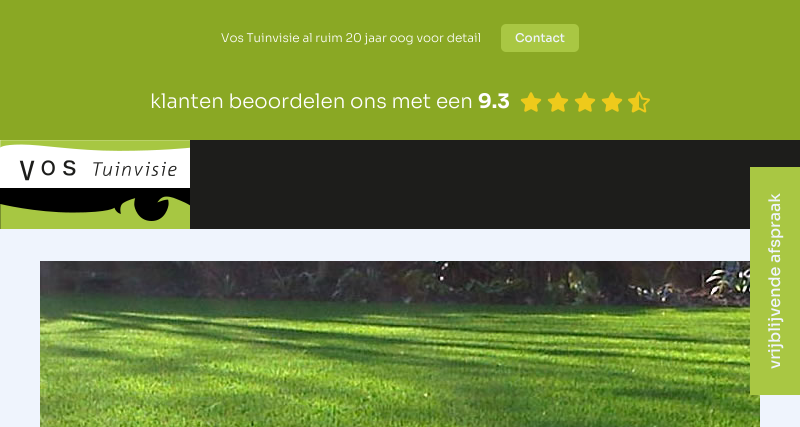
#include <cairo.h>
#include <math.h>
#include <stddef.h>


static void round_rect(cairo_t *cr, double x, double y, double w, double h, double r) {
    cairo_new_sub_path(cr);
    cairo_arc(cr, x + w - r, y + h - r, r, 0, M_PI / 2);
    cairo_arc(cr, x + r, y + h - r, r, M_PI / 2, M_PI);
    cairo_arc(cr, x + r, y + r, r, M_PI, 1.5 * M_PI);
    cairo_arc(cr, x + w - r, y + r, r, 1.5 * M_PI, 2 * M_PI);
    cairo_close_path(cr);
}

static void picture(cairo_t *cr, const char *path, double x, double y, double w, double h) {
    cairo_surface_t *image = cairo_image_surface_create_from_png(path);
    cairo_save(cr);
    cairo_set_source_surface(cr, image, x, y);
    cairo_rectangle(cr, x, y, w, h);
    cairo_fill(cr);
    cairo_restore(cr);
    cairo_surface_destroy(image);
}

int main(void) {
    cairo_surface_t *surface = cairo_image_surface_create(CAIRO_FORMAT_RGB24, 800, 427);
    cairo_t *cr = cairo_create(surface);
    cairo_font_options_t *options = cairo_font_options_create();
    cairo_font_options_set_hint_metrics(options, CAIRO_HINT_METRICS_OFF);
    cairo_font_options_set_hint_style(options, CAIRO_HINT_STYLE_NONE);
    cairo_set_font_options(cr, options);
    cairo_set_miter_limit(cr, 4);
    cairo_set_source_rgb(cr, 0.937, 0.957, 0.992);
    cairo_paint(cr);
    cairo_set_source_rgb(cr, 0.541, 0.659, 0.141);
    cairo_rectangle(cr, 0, 0, 800, 140);
    cairo_fill(cr);
    cairo_select_font_face(cr, "Sora Light", CAIRO_FONT_SLANT_NORMAL, CAIRO_FONT_WEIGHT_NORMAL);
    cairo_set_font_size(cr, 12);
    cairo_set_source_rgb(cr, 1, 1, 1);
    cairo_move_to(cr, 221, 42);
    cairo_show_text(cr, "Vos Tuinvisie al ruim 20 jaar oog voor detail");
    cairo_set_source_rgb(cr, 0.663, 0.78, 0.263);
    round_rect(cr, 501, 24, 78, 28, 5);
    cairo_fill(cr);
    cairo_select_font_face(cr, "Sora Medium", CAIRO_FONT_SLANT_NORMAL, CAIRO_FONT_WEIGHT_NORMAL);
    cairo_set_source_rgb(cr, 0.937, 0.957, 0.992);
    cairo_move_to(cr, 515, 42);
    cairo_show_text(cr, "Contact");
    cairo_select_font_face(cr, "Sora Light", CAIRO_FONT_SLANT_NORMAL, CAIRO_FONT_WEIGHT_NORMAL);
    cairo_set_font_size(cr, 20);
    cairo_set_source_rgb(cr, 1, 1, 1);
    cairo_move_to(cr, 150, 108);
    cairo_show_text(cr, "klanten beoordelen ons met een");
    cairo_select_font_face(cr, "Sora", CAIRO_FONT_SLANT_NORMAL, CAIRO_FONT_WEIGHT_BOLD);
    cairo_move_to(cr, 478, 108);
    cairo_show_text(cr, "9.3");
    picture(cr, "img1.png", 520, 92, 22, 20);
    picture(cr, "img1.png", 547, 92, 22, 20);
    picture(cr, "img1.png", 574, 92, 22, 20);
    picture(cr, "img1.png", 601, 92, 22, 20);
    picture(cr, "img2.png", 628, 91, 22, 22);
    cairo_set_source_rgb(cr, 0.114, 0.114, 0.106);
    cairo_rectangle(cr, 190, 140, 610, 89);
    cairo_fill(cr);
    picture(cr, "img3.png", 0, 140, 190, 89);
    picture(cr, "img4.png", 40, 261, 720, 166);
    cairo_set_source_rgb(cr, 0.663, 0.78, 0.263);
    cairo_rectangle(cr, 750, 167, 50, 228);
    cairo_fill(cr);
    cairo_select_font_face(cr, "Sora Medium", CAIRO_FONT_SLANT_NORMAL, CAIRO_FONT_WEIGHT_NORMAL);
    cairo_set_font_size(cr, 16);
    cairo_set_source_rgb(cr, 0.937, 0.957, 0.992);
    cairo_save(cr);
    cairo_translate(cr, 780, 369);
    cairo_rotate(cr, -90 * M_PI / 180);
    cairo_move_to(cr, 0, 0);
    cairo_show_text(cr, "vrijblijvende afspraak");
    cairo_restore(cr);
    cairo_surface_write_to_png(surface, "page.png");
    cairo_font_options_destroy(options);
    cairo_destroy(cr);
    cairo_surface_destroy(surface);
    return 0;
}
